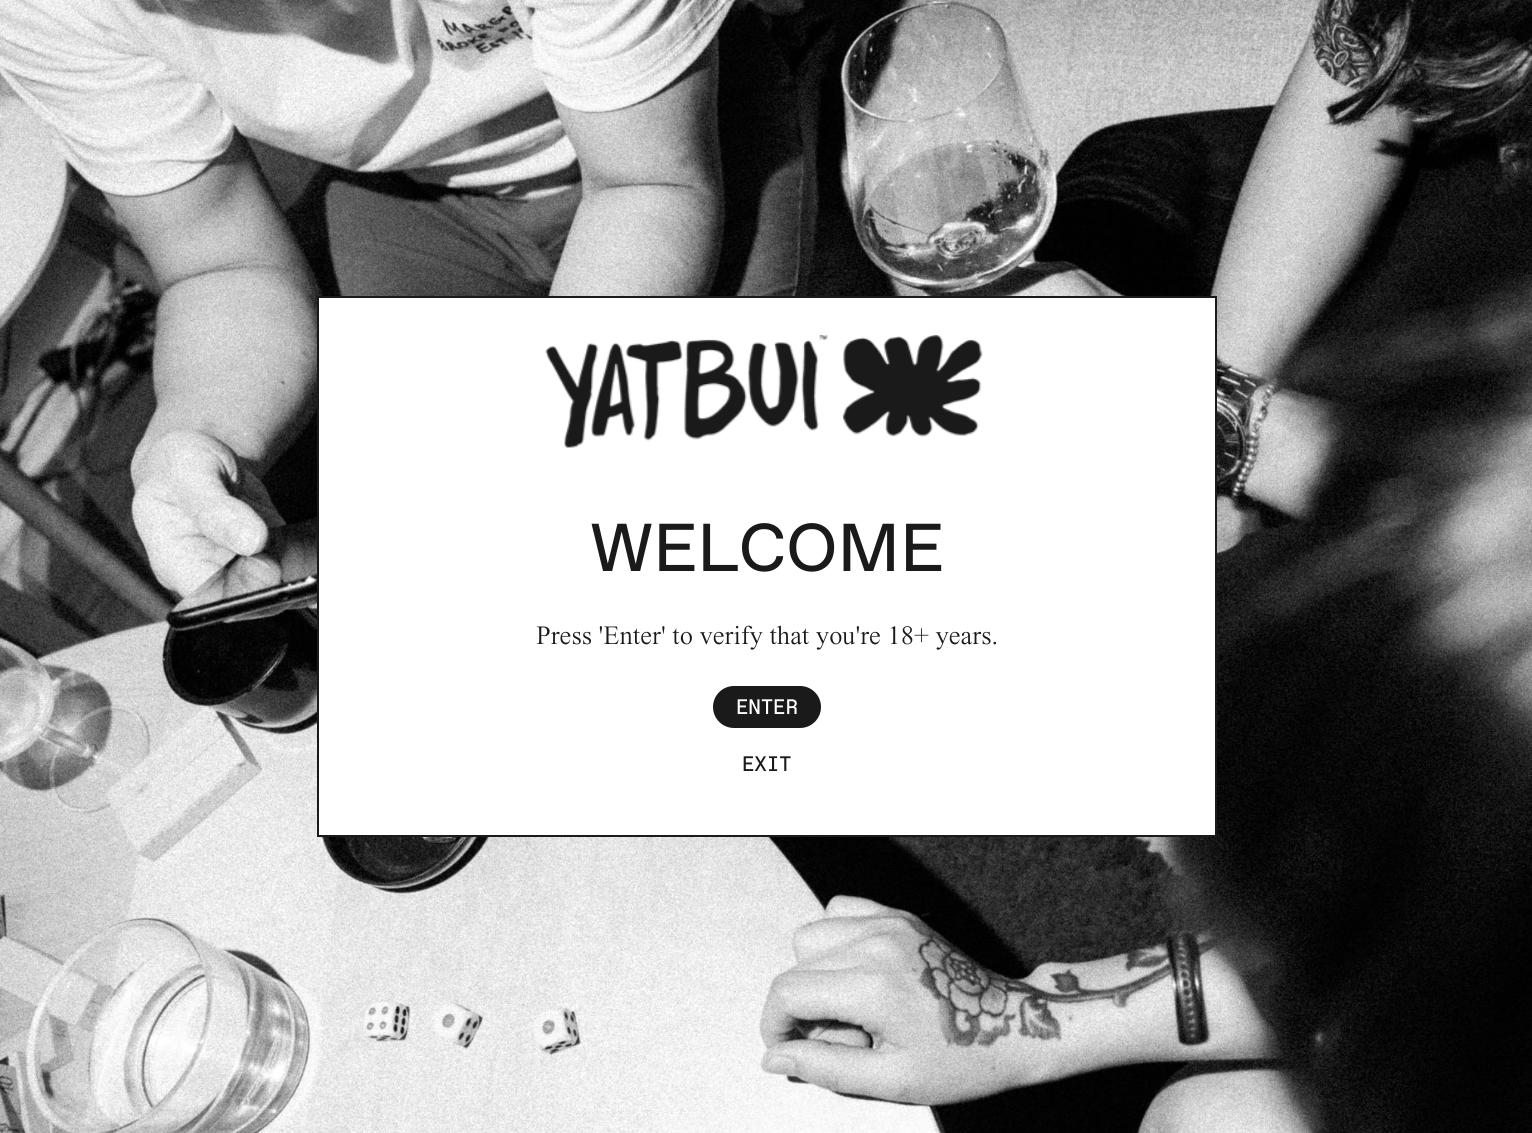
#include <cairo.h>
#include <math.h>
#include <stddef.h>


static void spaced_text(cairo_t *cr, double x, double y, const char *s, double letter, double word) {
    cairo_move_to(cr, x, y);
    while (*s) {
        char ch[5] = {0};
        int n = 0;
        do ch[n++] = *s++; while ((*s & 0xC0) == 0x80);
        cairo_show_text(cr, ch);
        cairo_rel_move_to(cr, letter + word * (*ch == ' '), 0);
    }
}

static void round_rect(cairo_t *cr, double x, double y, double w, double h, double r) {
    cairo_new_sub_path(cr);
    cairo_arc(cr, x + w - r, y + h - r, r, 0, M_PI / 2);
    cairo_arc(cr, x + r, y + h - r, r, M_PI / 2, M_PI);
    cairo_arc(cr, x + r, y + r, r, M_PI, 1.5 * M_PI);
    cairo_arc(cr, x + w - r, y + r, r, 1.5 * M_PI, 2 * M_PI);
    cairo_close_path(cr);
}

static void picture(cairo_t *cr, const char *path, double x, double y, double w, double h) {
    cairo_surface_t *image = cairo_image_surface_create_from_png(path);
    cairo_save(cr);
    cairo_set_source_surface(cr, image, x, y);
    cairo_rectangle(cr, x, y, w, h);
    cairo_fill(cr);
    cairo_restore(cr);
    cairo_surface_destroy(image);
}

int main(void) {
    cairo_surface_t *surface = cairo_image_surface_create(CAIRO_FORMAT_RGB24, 1532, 1133);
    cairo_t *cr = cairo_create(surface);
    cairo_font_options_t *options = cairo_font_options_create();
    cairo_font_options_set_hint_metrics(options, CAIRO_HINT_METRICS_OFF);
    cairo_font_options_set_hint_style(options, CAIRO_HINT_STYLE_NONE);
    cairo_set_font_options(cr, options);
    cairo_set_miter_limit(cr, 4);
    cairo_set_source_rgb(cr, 1, 1, 1);
    cairo_paint(cr);
    picture(cr, "img1.png", 0, 0, 1532, 1133);
    cairo_set_source_rgb(cr, 1, 1, 1);
    cairo_rectangle(cr, 318, 297, 898, 539);
    cairo_fill_preserve(cr);
    cairo_set_source_rgb(cr, 0.102, 0.102, 0.102);
    cairo_stroke(cr);
    picture(cr, "img2.png", 545, 334, 438, 114);
    cairo_select_font_face(cr, "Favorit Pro", CAIRO_FONT_SLANT_NORMAL, CAIRO_FONT_WEIGHT_NORMAL);
    cairo_set_font_size(cr, 67.5);
    cairo_move_to(cr, 590, 571);
    cairo_show_text(cr, "WELCOME");
    cairo_select_font_face(cr, "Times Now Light", CAIRO_FONT_SLANT_NORMAL, CAIRO_FONT_WEIGHT_NORMAL);
    cairo_set_font_size(cr, 26.4);
    cairo_move_to(cr, 536, 644);
    cairo_show_text(cr, "Press 'Enter' to verify that you're 18+ years.");
    round_rect(cr, 714, 687, 106, 40, 20);
    cairo_fill_preserve(cr);
    cairo_stroke(cr);
    cairo_select_font_face(cr, "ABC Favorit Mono", CAIRO_FONT_SLANT_NORMAL, CAIRO_FONT_WEIGHT_NORMAL);
    cairo_set_font_size(cr, 21);
    cairo_set_source_rgb(cr, 1, 1, 1);
    spaced_text(cr, 736, 714, "ENTER", -0.25, 0);
    cairo_set_source_rgb(cr, 0.102, 0.102, 0.102);
    spaced_text(cr, 742, 771, "EXIT", -0.25, 0);
    cairo_surface_write_to_png(surface, "page.png");
    cairo_font_options_destroy(options);
    cairo_destroy(cr);
    cairo_surface_destroy(surface);
    return 0;
}
